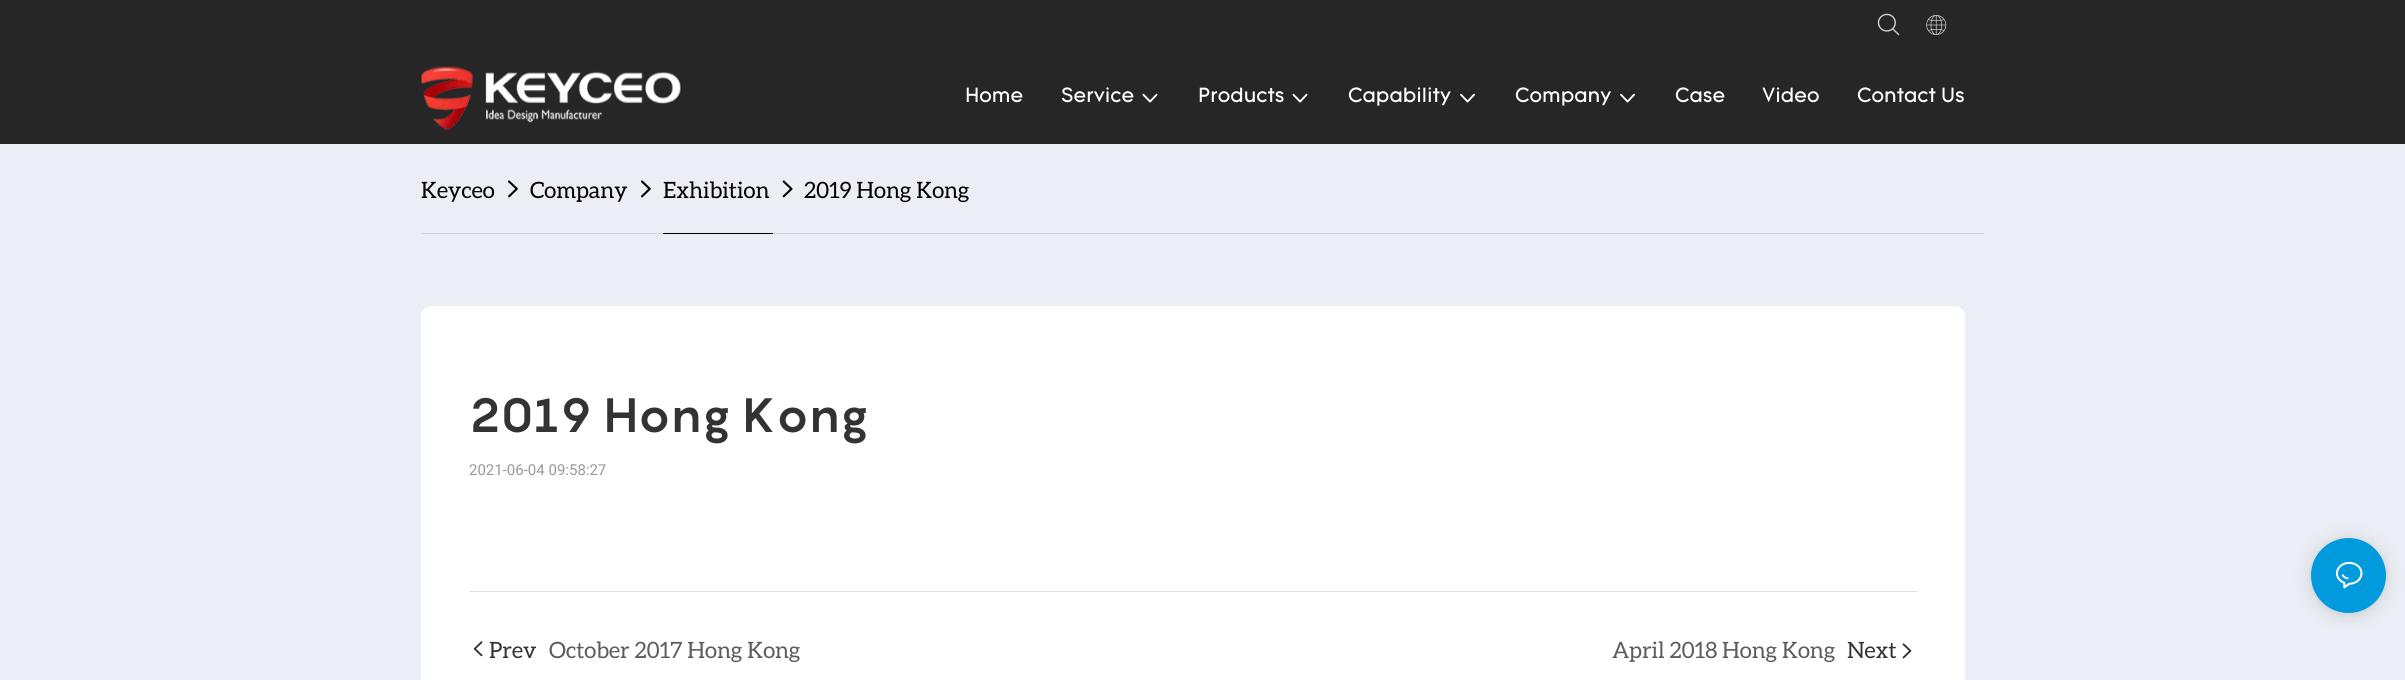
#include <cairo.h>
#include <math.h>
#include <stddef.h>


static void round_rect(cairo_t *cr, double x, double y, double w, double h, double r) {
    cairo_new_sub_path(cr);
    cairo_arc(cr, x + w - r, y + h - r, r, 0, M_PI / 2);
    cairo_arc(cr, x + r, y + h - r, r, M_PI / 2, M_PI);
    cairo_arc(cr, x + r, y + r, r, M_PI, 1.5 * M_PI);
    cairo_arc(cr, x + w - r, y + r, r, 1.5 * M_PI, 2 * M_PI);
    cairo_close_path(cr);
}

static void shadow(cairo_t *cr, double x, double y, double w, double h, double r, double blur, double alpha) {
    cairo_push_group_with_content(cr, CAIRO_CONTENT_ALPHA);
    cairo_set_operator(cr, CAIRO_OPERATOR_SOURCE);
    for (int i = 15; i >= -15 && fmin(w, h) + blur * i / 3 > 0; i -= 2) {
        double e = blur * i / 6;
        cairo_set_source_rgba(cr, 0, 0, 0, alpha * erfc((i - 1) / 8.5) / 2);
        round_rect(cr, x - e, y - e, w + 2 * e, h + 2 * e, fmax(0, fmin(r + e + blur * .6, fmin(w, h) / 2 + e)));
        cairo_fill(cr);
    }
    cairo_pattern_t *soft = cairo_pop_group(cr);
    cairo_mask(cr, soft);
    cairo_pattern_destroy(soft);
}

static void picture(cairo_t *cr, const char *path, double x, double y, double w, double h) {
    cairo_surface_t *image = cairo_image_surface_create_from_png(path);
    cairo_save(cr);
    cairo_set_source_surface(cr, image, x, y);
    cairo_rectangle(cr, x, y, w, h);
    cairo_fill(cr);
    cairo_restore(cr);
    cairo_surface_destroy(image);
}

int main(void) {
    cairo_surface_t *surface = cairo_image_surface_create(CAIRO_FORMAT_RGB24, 2405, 680);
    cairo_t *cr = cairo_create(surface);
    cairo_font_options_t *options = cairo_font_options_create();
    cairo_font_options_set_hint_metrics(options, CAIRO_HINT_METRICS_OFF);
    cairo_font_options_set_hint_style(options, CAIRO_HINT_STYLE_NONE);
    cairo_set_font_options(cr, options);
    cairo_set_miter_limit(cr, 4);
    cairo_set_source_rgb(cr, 0.918, 0.933, 0.957);
    cairo_paint(cr);
    cairo_set_source_rgb(cr, 0.149, 0.149, 0.149);
    cairo_rectangle(cr, 0, 0, 2405, 144);
    cairo_fill(cr);
    picture(cr, "img1.png", 1877, 13, 23, 23);
    picture(cr, "img2.png", 1926, 15, 21, 20);
    picture(cr, "img3.png", 421, 66, 260, 65);
    cairo_select_font_face(cr, "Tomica", CAIRO_FONT_SLANT_NORMAL, CAIRO_FONT_WEIGHT_NORMAL);
    cairo_set_font_size(cr, 20);
    cairo_set_source_rgb(cr, 1, 1, 1);
    cairo_move_to(cr, 965, 102);
    cairo_show_text(cr, "Home");
    cairo_move_to(cr, 1061, 102);
    cairo_show_text(cr, "Service");
    picture(cr, "img4.png", 1142, 93, 16, 10);
    cairo_move_to(cr, 1198, 102);
    cairo_show_text(cr, "Products");
    picture(cr, "img4.png", 1292, 93, 16, 10);
    cairo_move_to(cr, 1348, 102);
    cairo_show_text(cr, "Capability");
    picture(cr, "img5.png", 1460, 93, 15, 10);
    cairo_move_to(cr, 1515, 102);
    cairo_show_text(cr, "Company");
    picture(cr, "img5.png", 1620, 93, 15, 10);
    cairo_move_to(cr, 1675, 102);
    cairo_show_text(cr, "Case");
    cairo_move_to(cr, 1762, 102);
    cairo_show_text(cr, "Video");
    cairo_move_to(cr, 1857, 102);
    cairo_show_text(cr, "Contact Us");
    cairo_set_source_rgb(cr, 0.827, 0.839, 0.863);
    cairo_rectangle(cr, 421, 233, 1563, 1);
    cairo_fill(cr);
    cairo_select_font_face(cr, "Aleo", CAIRO_FONT_SLANT_NORMAL, CAIRO_FONT_WEIGHT_NORMAL);
    cairo_set_font_size(cr, 22.5);
    cairo_set_source_rgb(cr, 0, 0, 0);
    cairo_move_to(cr, 421, 198);
    cairo_show_text(cr, "Keyceo");
    picture(cr, "img6.png", 508, 180, 10, 18);
    cairo_move_to(cr, 530, 198);
    cairo_show_text(cr, "Company");
    picture(cr, "img7.png", 641, 180, 10, 18);
    cairo_move_to(cr, 663, 198);
    cairo_show_text(cr, "Exhibition");
    cairo_rectangle(cr, 663, 233, 110, 1);
    cairo_fill(cr);
    picture(cr, "img8.png", 782, 180, 11, 18);
    cairo_move_to(cr, 804, 198);
    cairo_show_text(cr, "2019 Hong Kong");
    cairo_set_source_rgb(cr, 1, 1, 1);
    round_rect(cr, 421, 306, 1544, 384, 10);
    cairo_fill(cr);
    cairo_select_font_face(cr, "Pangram", CAIRO_FONT_SLANT_NORMAL, CAIRO_FONT_WEIGHT_BOLD);
    cairo_set_font_size(cr, 47.5);
    cairo_set_source_rgb(cr, 0.2, 0.2, 0.2);
    cairo_move_to(cr, 469, 432);
    cairo_show_text(cr, "2019 Hong Kong");
    cairo_select_font_face(cr, "Roboto", CAIRO_FONT_SLANT_NORMAL, CAIRO_FONT_WEIGHT_NORMAL);
    cairo_set_font_size(cr, 15);
    cairo_set_source_rgb(cr, 0.6, 0.6, 0.6);
    cairo_move_to(cr, 469, 475);
    cairo_show_text(cr, "2021-06-04 09:58:27");
    cairo_set_source_rgb(cr, 0.875, 0.875, 0.882);
    cairo_rectangle(cr, 469, 591, 1449, 1);
    cairo_fill(cr);
    picture(cr, "img9.png", 473, 641, 10, 16);
    cairo_select_font_face(cr, "Aleo", CAIRO_FONT_SLANT_NORMAL, CAIRO_FONT_WEIGHT_NORMAL);
    cairo_set_font_size(cr, 22.5);
    cairo_set_source_rgb(cr, 0.2, 0.2, 0.2);
    cairo_move_to(cr, 489, 658);
    cairo_show_text(cr, "Prev");
    cairo_set_source_rgb(cr, 0.361, 0.361, 0.361);
    cairo_move_to(cr, 549, 658);
    cairo_show_text(cr, "October 2017 Hong Kong");
    cairo_move_to(cr, 1612, 658);
    cairo_show_text(cr, "April 2018 Hong Kong");
    cairo_set_source_rgb(cr, 0.2, 0.2, 0.2);
    cairo_move_to(cr, 1847, 658);
    cairo_show_text(cr, "Next");
    picture(cr, "img10.png", 1902, 643, 10, 16);
    cairo_set_source_rgb(cr, 0, 0, 0);
    shadow(cr, 2311, 540, 75, 75, 37.5, 10, 0.12);
    shadow(cr, 2311, 539, 75, 75, 37.5, 2.5, 0.06);
    cairo_set_source_rgb(cr, 0, 0.604, 0.867);
    cairo_arc(cr, 2348.5, 575.5, 37.5, 0, 2 * M_PI);
    cairo_fill(cr);
    picture(cr, "img11.png", 2335, 561, 28, 28);
    cairo_surface_write_to_png(surface, "page.png");
    cairo_font_options_destroy(options);
    cairo_destroy(cr);
    cairo_surface_destroy(surface);
    return 0;
}
